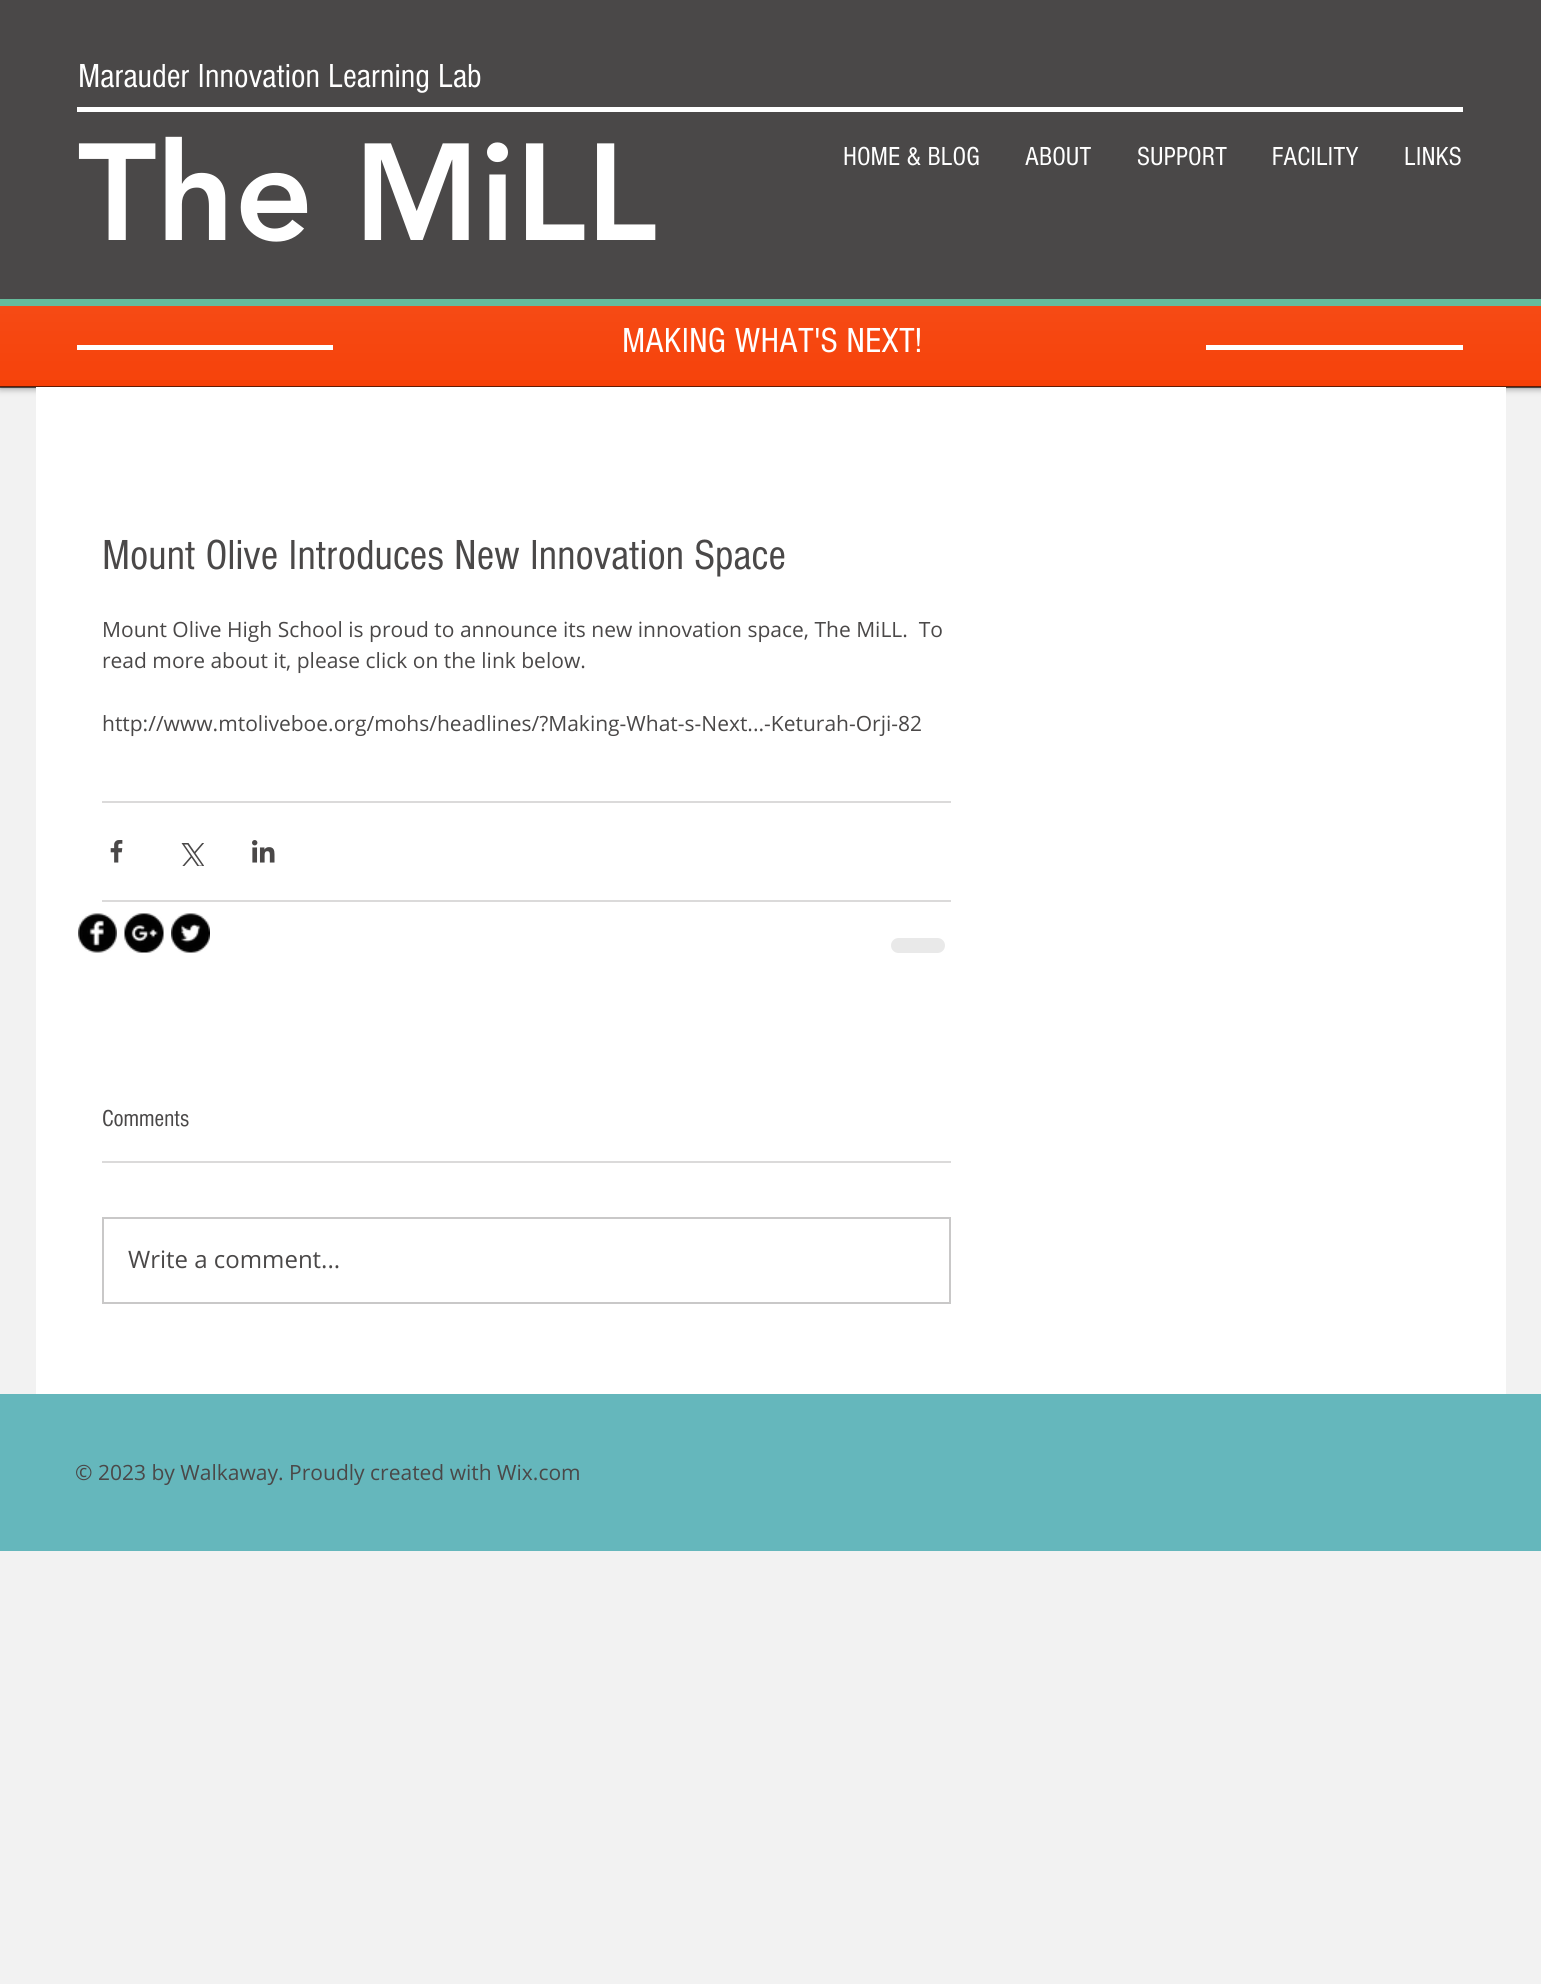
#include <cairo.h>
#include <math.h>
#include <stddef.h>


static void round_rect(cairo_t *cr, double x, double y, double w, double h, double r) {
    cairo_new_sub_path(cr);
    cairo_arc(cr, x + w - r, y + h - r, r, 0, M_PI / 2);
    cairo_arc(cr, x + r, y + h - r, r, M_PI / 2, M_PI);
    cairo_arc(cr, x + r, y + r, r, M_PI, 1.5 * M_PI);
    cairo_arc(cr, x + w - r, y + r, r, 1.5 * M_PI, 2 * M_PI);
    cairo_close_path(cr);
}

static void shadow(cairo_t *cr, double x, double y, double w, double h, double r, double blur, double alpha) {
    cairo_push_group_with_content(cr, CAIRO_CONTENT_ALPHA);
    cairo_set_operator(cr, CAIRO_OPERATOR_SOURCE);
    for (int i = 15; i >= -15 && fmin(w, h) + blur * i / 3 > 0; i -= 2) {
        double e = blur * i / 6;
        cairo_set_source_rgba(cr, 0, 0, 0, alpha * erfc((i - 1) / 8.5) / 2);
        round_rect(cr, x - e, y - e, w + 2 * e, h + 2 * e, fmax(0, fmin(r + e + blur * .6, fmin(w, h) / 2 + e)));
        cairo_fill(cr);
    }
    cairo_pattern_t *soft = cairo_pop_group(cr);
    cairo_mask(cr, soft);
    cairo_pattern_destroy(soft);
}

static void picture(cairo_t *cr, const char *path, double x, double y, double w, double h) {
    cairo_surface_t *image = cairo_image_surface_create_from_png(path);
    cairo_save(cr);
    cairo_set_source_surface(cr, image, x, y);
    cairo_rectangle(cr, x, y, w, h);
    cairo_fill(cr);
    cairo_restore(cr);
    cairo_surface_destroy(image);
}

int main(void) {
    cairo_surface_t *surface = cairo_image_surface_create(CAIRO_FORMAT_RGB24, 1541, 1984);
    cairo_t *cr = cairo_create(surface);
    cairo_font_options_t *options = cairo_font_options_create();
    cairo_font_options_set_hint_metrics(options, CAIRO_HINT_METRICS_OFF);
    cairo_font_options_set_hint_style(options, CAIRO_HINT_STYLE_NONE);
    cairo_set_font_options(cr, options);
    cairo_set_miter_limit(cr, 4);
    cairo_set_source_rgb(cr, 0.949, 0.949, 0.949);
    cairo_paint(cr);
    cairo_set_source_rgb(cr, 0, 0, 0);
    shadow(cr, 0, 0, 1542, 387, 0, 4, 0.6);
    cairo_set_source_rgb(cr, 0.961, 0.247, 0.027);
    cairo_rectangle(cr, 0, 306, 1541, 81);
    cairo_fill(cr);
    picture(cr, "img1.png", 0, 306, 1541, 74);
    cairo_set_source_rgba(cr, 0, 0, 0, 0.6);
    cairo_rectangle(cr, 0, 386, 1541, 2);
    cairo_fill(cr);
    cairo_set_source_rgb(cr, 0.29, 0.282, 0.282);
    cairo_rectangle(cr, 0, 0, 1541, 299);
    cairo_fill(cr);
    cairo_set_source_rgb(cr, 0.396, 0.737, 0.612);
    cairo_rectangle(cr, 0, 299, 1541, 7);
    cairo_fill(cr);
    cairo_select_font_face(cr, "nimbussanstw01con", CAIRO_FONT_SLANT_NORMAL, CAIRO_FONT_WEIGHT_NORMAL);
    cairo_set_font_size(cr, 34.5);
    cairo_set_source_rgb(cr, 1, 1, 1);
    cairo_move_to(cr, 78, 87);
    cairo_show_text(cr, "Marauder Innovation Learning Lab");
    cairo_rectangle(cr, 77, 107, 1386, 5);
    cairo_fill(cr);
    cairo_select_font_face(cr, "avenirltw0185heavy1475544 Black", CAIRO_FONT_SLANT_NORMAL, CAIRO_FONT_WEIGHT_NORMAL);
    cairo_set_font_size(cr, 136.5);
    cairo_move_to(cr, 78, 240);
    cairo_show_text(cr, "The MiLL");
    cairo_select_font_face(cr, "nimbussanstw01con", CAIRO_FONT_SLANT_NORMAL, CAIRO_FONT_WEIGHT_NORMAL);
    cairo_set_font_size(cr, 27);
    cairo_move_to(cr, 843, 165);
    cairo_show_text(cr, "HOME & BLOG");
    cairo_move_to(cr, 1025, 165);
    cairo_show_text(cr, "ABOUT");
    cairo_move_to(cr, 1137, 165);
    cairo_show_text(cr, "SUPPORT");
    cairo_move_to(cr, 1272, 165);
    cairo_show_text(cr, "FACILITY");
    cairo_move_to(cr, 1404, 165);
    cairo_show_text(cr, "LINKS");
    cairo_rectangle(cr, 77, 345, 256, 5);
    cairo_fill(cr);
    cairo_set_font_size(cr, 36);
    cairo_move_to(cr, 622, 352);
    cairo_show_text(cr, "MAKING WHAT'S NEXT!");
    cairo_rectangle(cr, 1206, 345, 257, 5);
    cairo_fill(cr);
    cairo_rectangle(cr, 36, 387, 1470, 1007);
    cairo_fill(cr);
    cairo_set_font_size(cr, 43.5);
    cairo_set_source_rgb(cr, 0.29, 0.282, 0.282);
    cairo_move_to(cr, 102, 569);
    cairo_show_text(cr, "Mount Olive Introduces New Innovation Space");
    cairo_select_font_face(cr, "Open Sans", CAIRO_FONT_SLANT_NORMAL, CAIRO_FONT_WEIGHT_NORMAL);
    cairo_set_font_size(cr, 21);
    cairo_move_to(cr, 102, 637);
    cairo_show_text(cr, "Mount Olive High School is proud to announce its new innovation space, The MiLL.  To");
    cairo_move_to(cr, 102, 668);
    cairo_show_text(cr, "read more about it, please click on the link below.");
    cairo_move_to(cr, 102, 731);
    cairo_show_text(cr, "http://www.mtoliveboe.org/mohs/headlines/?Making-What-s-Next...-Keturah-Orji-82");
    cairo_set_source_rgb(cr, 0.859, 0.855, 0.855);
    cairo_rectangle(cr, 102, 801, 849, 2);
    cairo_fill(cr);
    picture(cr, "img2.png", 110, 840, 13, 23);
    picture(cr, "img3.png", 181, 843, 23, 23);
    picture(cr, "img4.png", 252, 840, 23, 23);
    cairo_rectangle(cr, 102, 900, 849, 2);
    cairo_fill(cr);
    cairo_set_source_rgb(cr, 0.914, 0.914, 0.914);
    round_rect(cr, 891, 938, 54, 15, 7.5);
    cairo_fill(cr);
    cairo_select_font_face(cr, "nimbussanstw01con", CAIRO_FONT_SLANT_NORMAL, CAIRO_FONT_WEIGHT_NORMAL);
    cairo_set_font_size(cr, 24);
    cairo_set_source_rgb(cr, 0.29, 0.282, 0.282);
    cairo_move_to(cr, 102, 1126);
    cairo_show_text(cr, "Comments");
    cairo_set_source_rgb(cr, 0.859, 0.855, 0.855);
    cairo_rectangle(cr, 102, 1161, 849, 2);
    cairo_fill(cr);
    cairo_rectangle(cr, 103, 1218, 847, 85);
    cairo_set_source_rgb(cr, 0.788, 0.784, 0.784);
    cairo_stroke(cr);
    cairo_select_font_face(cr, "Open Sans", CAIRO_FONT_SLANT_NORMAL, CAIRO_FONT_WEIGHT_NORMAL);
    cairo_set_source_rgb(cr, 0.29, 0.282, 0.282);
    cairo_move_to(cr, 128, 1268);
    cairo_show_text(cr, "Write a comment...");
    picture(cr, "img5.png", 78, 913, 39, 40);
    picture(cr, "img6.png", 124, 913, 40, 40);
    picture(cr, "img7.png", 171, 913, 39, 40);
    cairo_set_source_rgb(cr, 0.396, 0.718, 0.737);
    cairo_rectangle(cr, 0, 1394, 1541, 157);
    cairo_fill(cr);
    cairo_set_font_size(cr, 21);
    cairo_set_source_rgb(cr, 0.29, 0.282, 0.282);
    cairo_move_to(cr, 75, 1480);
    cairo_show_text(cr, "© 2023 by Walkaway. Proudly created with Wix.com");
    cairo_surface_write_to_png(surface, "page.png");
    cairo_font_options_destroy(options);
    cairo_destroy(cr);
    cairo_surface_destroy(surface);
    return 0;
}
